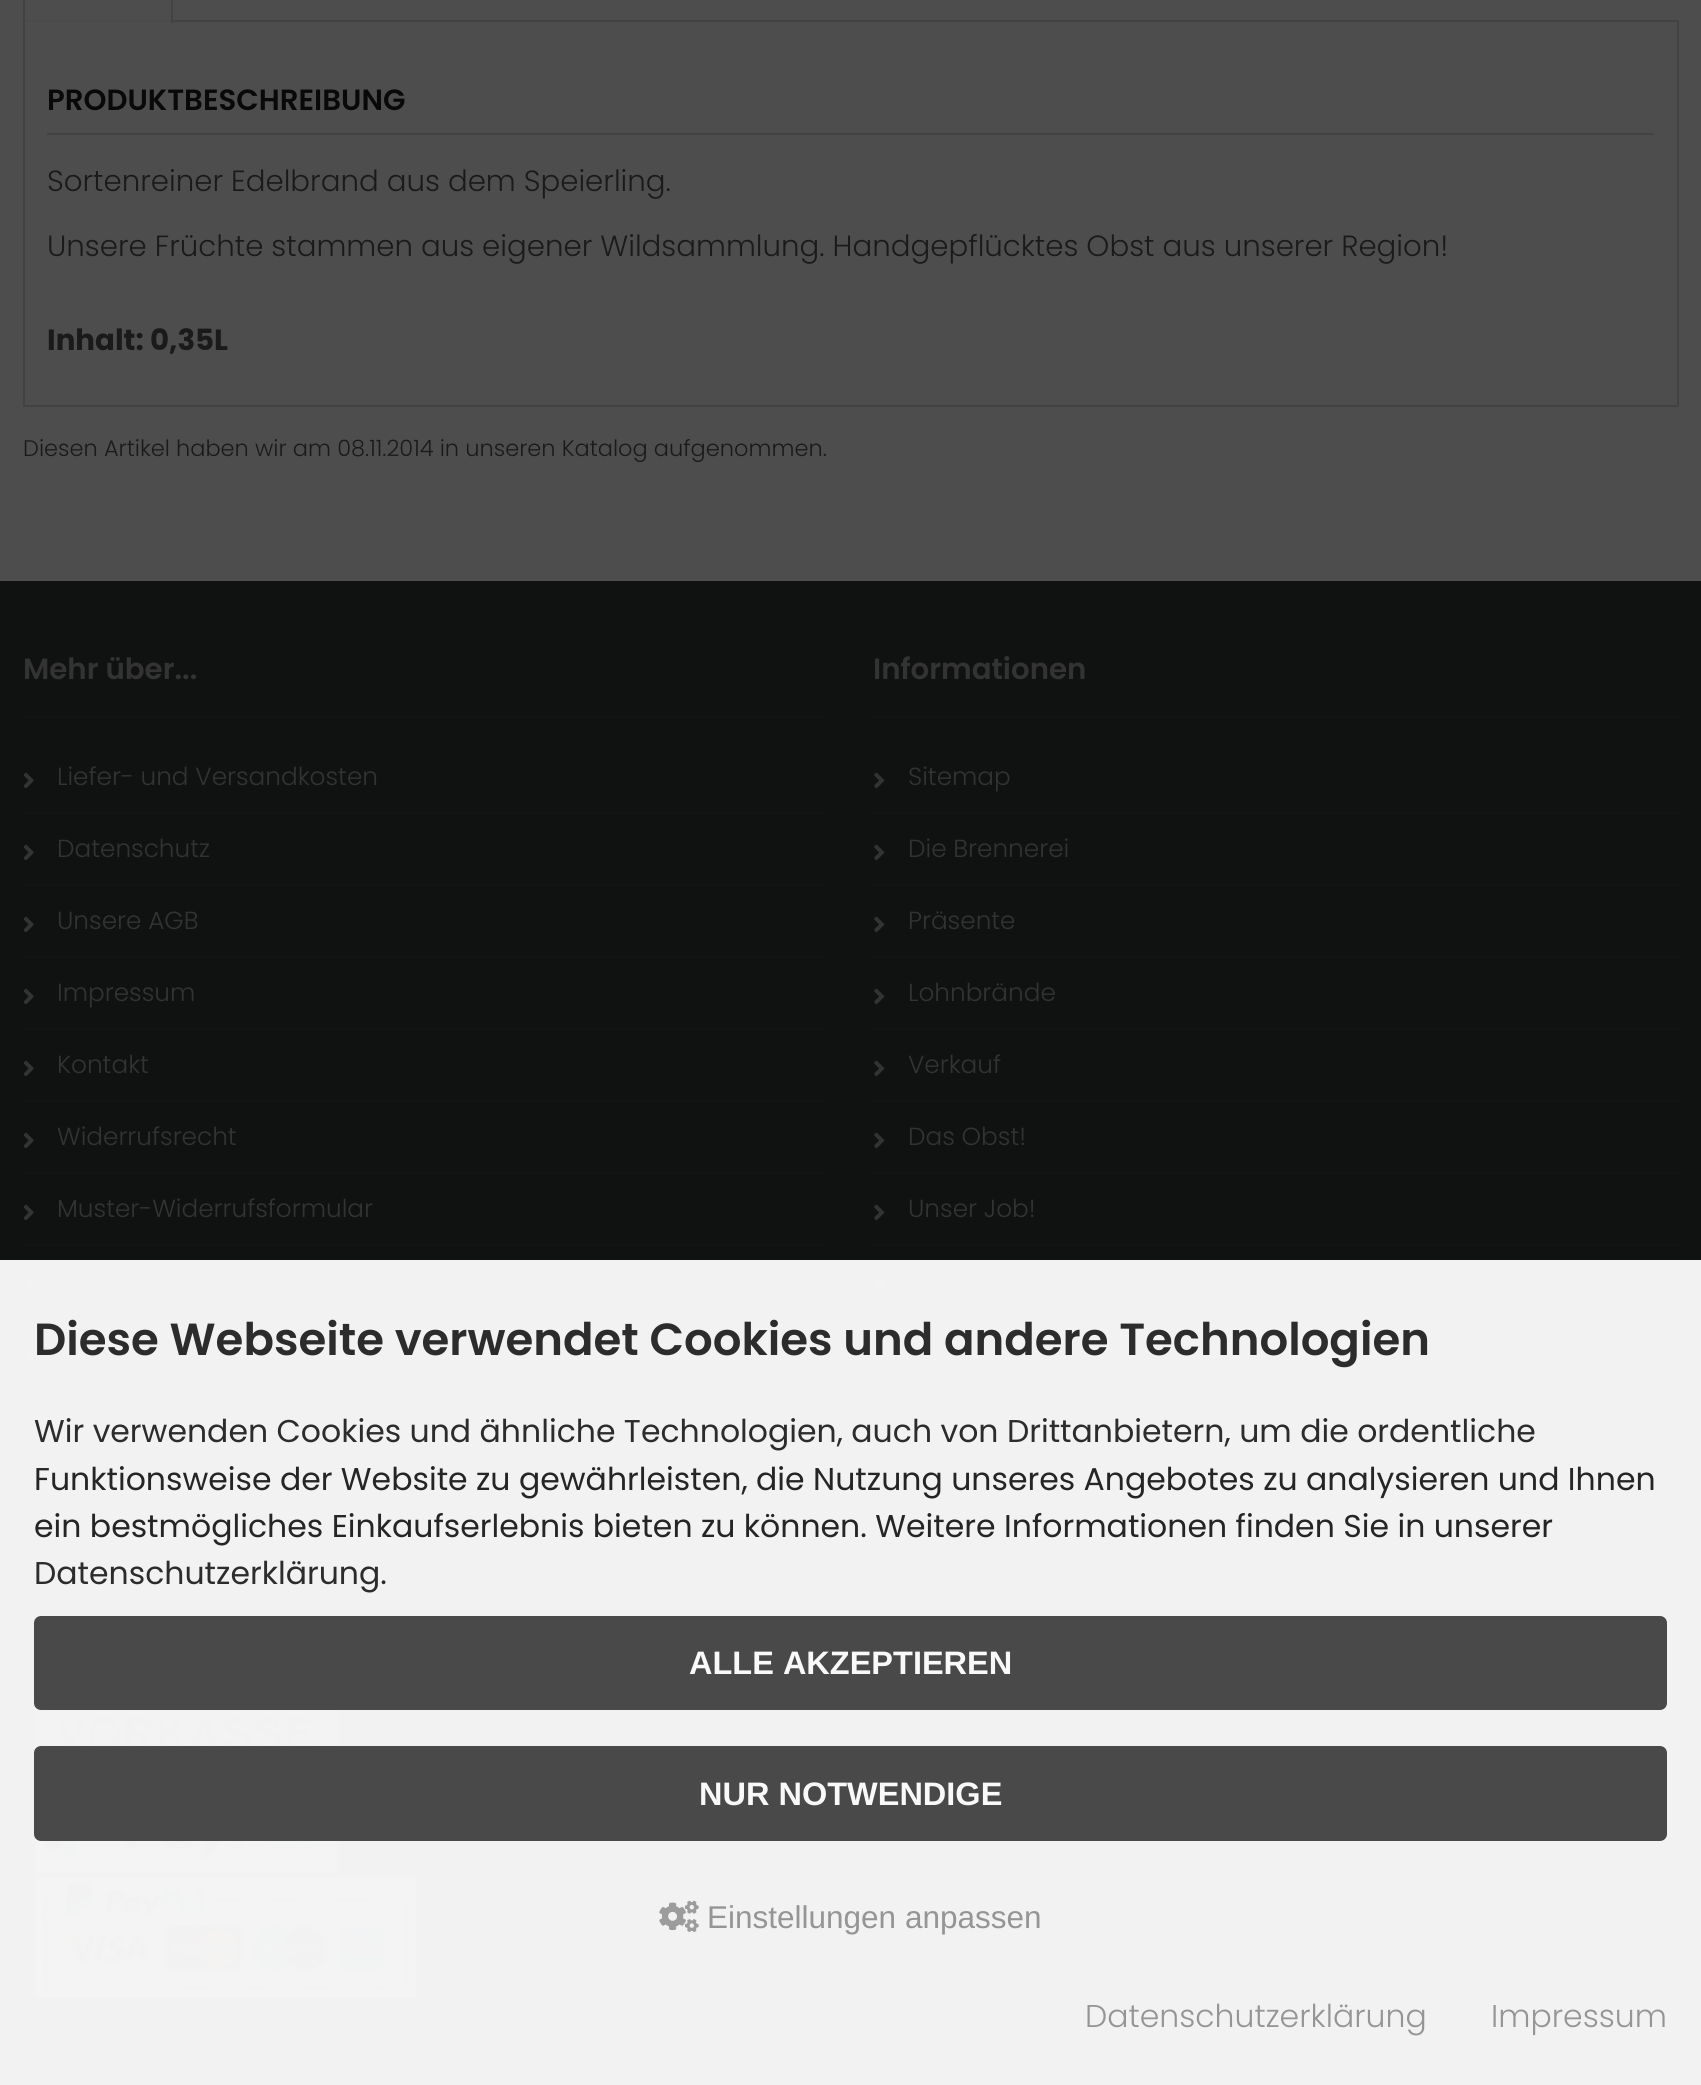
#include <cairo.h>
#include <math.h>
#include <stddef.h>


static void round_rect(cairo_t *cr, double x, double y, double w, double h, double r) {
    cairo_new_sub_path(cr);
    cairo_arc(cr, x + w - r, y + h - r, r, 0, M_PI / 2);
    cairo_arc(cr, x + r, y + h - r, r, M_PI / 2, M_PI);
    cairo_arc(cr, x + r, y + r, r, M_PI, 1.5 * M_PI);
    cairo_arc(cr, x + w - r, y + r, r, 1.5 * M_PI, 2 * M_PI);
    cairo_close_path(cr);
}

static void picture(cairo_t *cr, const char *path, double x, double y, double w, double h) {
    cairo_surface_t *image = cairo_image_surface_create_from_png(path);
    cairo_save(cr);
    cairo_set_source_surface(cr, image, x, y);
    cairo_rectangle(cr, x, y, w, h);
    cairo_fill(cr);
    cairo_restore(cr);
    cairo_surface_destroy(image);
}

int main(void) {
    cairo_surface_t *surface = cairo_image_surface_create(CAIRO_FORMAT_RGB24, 1701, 2085);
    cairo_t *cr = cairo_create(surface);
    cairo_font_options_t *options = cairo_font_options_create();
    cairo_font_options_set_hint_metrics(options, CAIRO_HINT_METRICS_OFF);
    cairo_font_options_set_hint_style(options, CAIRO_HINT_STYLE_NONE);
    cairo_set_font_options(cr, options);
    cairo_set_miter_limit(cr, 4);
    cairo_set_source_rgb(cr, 0.302, 0.302, 0.302);
    cairo_paint(cr);
    cairo_rectangle(cr, 24, 21, 1654, 385);
    cairo_set_source_rgb(cr, 0.259, 0.259, 0.259);
    cairo_stroke(cr);
    cairo_set_source_rgb(cr, 0.294, 0.294, 0.294);
    cairo_rectangle(cr, 25, 20, 146, 2);
    cairo_fill(cr);
    cairo_set_source_rgb(cr, 0.259, 0.259, 0.259);
    cairo_rectangle(cr, 171, 0, 2, 23);
    cairo_fill(cr);
    cairo_rectangle(cr, 23, 0, 2, 23);
    cairo_fill(cr);
    cairo_rectangle(cr, 47, 133, 1607, 2);
    cairo_fill(cr);
    cairo_select_font_face(cr, "Poppins SemiBold", CAIRO_FONT_SLANT_NORMAL, CAIRO_FONT_WEIGHT_NORMAL);
    cairo_set_font_size(cr, 29.25);
    cairo_set_source_rgb(cr, 0.039, 0.039, 0.039);
    cairo_move_to(cr, 47, 110);
    cairo_show_text(cr, "PRODUKTBESCHREIBUNG");
    cairo_select_font_face(cr, "Poppins Light", CAIRO_FONT_SLANT_NORMAL, CAIRO_FONT_WEIGHT_NORMAL);
    cairo_set_source_rgb(cr, 0.102, 0.102, 0.102);
    cairo_move_to(cr, 47, 191);
    cairo_show_text(cr, "Sortenreiner Edelbrand aus dem Speierling.");
    cairo_move_to(cr, 47, 256);
    cairo_show_text(cr, "Unsere Früchte stammen aus eigener Wildsammlung. Handgepflücktes Obst aus unserer Region!");
    cairo_select_font_face(cr, "Poppins", CAIRO_FONT_SLANT_NORMAL, CAIRO_FONT_WEIGHT_BOLD);
    cairo_move_to(cr, 47, 350);
    cairo_show_text(cr, "Inhalt: 0,35L");
    cairo_select_font_face(cr, "Poppins Light", CAIRO_FONT_SLANT_NORMAL, CAIRO_FONT_WEIGHT_NORMAL);
    cairo_set_font_size(cr, 22.5);
    cairo_move_to(cr, 23, 456);
    cairo_show_text(cr, "Diesen Artikel haben wir am 08.11.2014 in unseren Katalog aufgenommen.");
    cairo_set_source_rgb(cr, 0.063, 0.067, 0.067);
    cairo_rectangle(cr, 0, 581, 1701, 679);
    cairo_fill(cr);
    cairo_set_source_rgb(cr, 0.949, 0.949, 0.949);
    cairo_rectangle(cr, 0, 1260, 1701, 825);
    cairo_fill(cr);
    cairo_select_font_face(cr, "Poppins SemiBold", CAIRO_FONT_SLANT_NORMAL, CAIRO_FONT_WEIGHT_NORMAL);
    cairo_set_font_size(cr, 29.25);
    cairo_set_source_rgb(cr, 0.2, 0.2, 0.2);
    cairo_move_to(cr, 23, 679);
    cairo_show_text(cr, "Mehr über...");
    cairo_set_source_rgb(cr, 0.078, 0.078, 0.078);
    cairo_rectangle(cr, 23, 716, 805, 2);
    cairo_fill(cr);
    cairo_rectangle(cr, 23, 812, 805, 2);
    cairo_fill(cr);
    picture(cr, "img1.png", 23, 772, 11, 17);
    cairo_select_font_face(cr, "Poppins Light", CAIRO_FONT_SLANT_NORMAL, CAIRO_FONT_WEIGHT_NORMAL);
    cairo_set_font_size(cr, 24.75);
    cairo_set_source_rgb(cr, 0.2, 0.2, 0.2);
    cairo_move_to(cr, 57, 785);
    cairo_show_text(cr, "Liefer- und Versandkosten");
    cairo_set_source_rgb(cr, 0.078, 0.078, 0.078);
    cairo_rectangle(cr, 23, 884, 805, 2);
    cairo_fill(cr);
    picture(cr, "img1.png", 23, 844, 11, 17);
    cairo_set_source_rgb(cr, 0.2, 0.2, 0.2);
    cairo_move_to(cr, 57, 857);
    cairo_show_text(cr, "Datenschutz");
    cairo_set_source_rgb(cr, 0.078, 0.078, 0.078);
    cairo_rectangle(cr, 23, 956, 805, 2);
    cairo_fill(cr);
    picture(cr, "img1.png", 23, 916, 11, 17);
    cairo_set_source_rgb(cr, 0.2, 0.2, 0.2);
    cairo_move_to(cr, 57, 929);
    cairo_show_text(cr, "Unsere AGB");
    cairo_set_source_rgb(cr, 0.078, 0.078, 0.078);
    cairo_rectangle(cr, 23, 1028, 805, 2);
    cairo_fill(cr);
    picture(cr, "img1.png", 23, 988, 11, 17);
    cairo_set_source_rgb(cr, 0.2, 0.2, 0.2);
    cairo_move_to(cr, 57, 1001);
    cairo_show_text(cr, "Impressum");
    cairo_set_source_rgb(cr, 0.078, 0.078, 0.078);
    cairo_rectangle(cr, 23, 1100, 805, 2);
    cairo_fill(cr);
    picture(cr, "img1.png", 23, 1060, 11, 17);
    cairo_set_source_rgb(cr, 0.2, 0.2, 0.2);
    cairo_move_to(cr, 57, 1073);
    cairo_show_text(cr, "Kontakt");
    cairo_set_source_rgb(cr, 0.078, 0.078, 0.078);
    cairo_rectangle(cr, 23, 1172, 805, 2);
    cairo_fill(cr);
    picture(cr, "img1.png", 23, 1132, 11, 17);
    cairo_set_source_rgb(cr, 0.2, 0.2, 0.2);
    cairo_move_to(cr, 57, 1145);
    cairo_show_text(cr, "Widerrufsrecht");
    cairo_set_source_rgb(cr, 0.078, 0.078, 0.078);
    cairo_rectangle(cr, 23, 1244, 805, 2);
    cairo_fill(cr);
    picture(cr, "img1.png", 23, 1204, 11, 17);
    cairo_set_source_rgb(cr, 0.2, 0.2, 0.2);
    cairo_move_to(cr, 57, 1217);
    cairo_show_text(cr, "Muster-Widerrufsformular");
    picture(cr, "img2.png", 23, 1276, 11, 17);
    picture(cr, "img2.png", 23, 1348, 11, 17);
    cairo_select_font_face(cr, "Poppins SemiBold", CAIRO_FONT_SLANT_NORMAL, CAIRO_FONT_WEIGHT_NORMAL);
    cairo_set_font_size(cr, 29.25);
    cairo_move_to(cr, 873, 679);
    cairo_show_text(cr, "Informationen");
    cairo_set_source_rgb(cr, 0.078, 0.078, 0.078);
    cairo_rectangle(cr, 873, 716, 806, 2);
    cairo_fill(cr);
    cairo_rectangle(cr, 873, 812, 806, 2);
    cairo_fill(cr);
    picture(cr, "img3.png", 874, 772, 11, 17);
    cairo_select_font_face(cr, "Poppins Light", CAIRO_FONT_SLANT_NORMAL, CAIRO_FONT_WEIGHT_NORMAL);
    cairo_set_font_size(cr, 24.75);
    cairo_set_source_rgb(cr, 0.2, 0.2, 0.2);
    cairo_move_to(cr, 908, 785);
    cairo_show_text(cr, "Sitemap");
    cairo_set_source_rgb(cr, 0.078, 0.078, 0.078);
    cairo_rectangle(cr, 873, 884, 806, 2);
    cairo_fill(cr);
    picture(cr, "img3.png", 874, 844, 11, 17);
    cairo_set_source_rgb(cr, 0.2, 0.2, 0.2);
    cairo_move_to(cr, 908, 857);
    cairo_show_text(cr, "Die Brennerei");
    cairo_set_source_rgb(cr, 0.078, 0.078, 0.078);
    cairo_rectangle(cr, 873, 956, 806, 2);
    cairo_fill(cr);
    picture(cr, "img3.png", 874, 916, 11, 17);
    cairo_set_source_rgb(cr, 0.2, 0.2, 0.2);
    cairo_move_to(cr, 908, 929);
    cairo_show_text(cr, "Präsente");
    cairo_set_source_rgb(cr, 0.078, 0.078, 0.078);
    cairo_rectangle(cr, 873, 1028, 806, 2);
    cairo_fill(cr);
    picture(cr, "img3.png", 874, 988, 11, 17);
    cairo_set_source_rgb(cr, 0.2, 0.2, 0.2);
    cairo_move_to(cr, 908, 1001);
    cairo_show_text(cr, "Lohnbrände");
    cairo_set_source_rgb(cr, 0.078, 0.078, 0.078);
    cairo_rectangle(cr, 873, 1100, 806, 2);
    cairo_fill(cr);
    picture(cr, "img3.png", 874, 1060, 11, 17);
    cairo_set_source_rgb(cr, 0.2, 0.2, 0.2);
    cairo_move_to(cr, 908, 1073);
    cairo_show_text(cr, "Verkauf");
    cairo_set_source_rgb(cr, 0.078, 0.078, 0.078);
    cairo_rectangle(cr, 873, 1172, 806, 2);
    cairo_fill(cr);
    picture(cr, "img3.png", 874, 1132, 11, 17);
    cairo_set_source_rgb(cr, 0.2, 0.2, 0.2);
    cairo_move_to(cr, 908, 1145);
    cairo_show_text(cr, "Das Obst!");
    cairo_set_source_rgb(cr, 0.078, 0.078, 0.078);
    cairo_rectangle(cr, 873, 1244, 806, 2);
    cairo_fill(cr);
    picture(cr, "img3.png", 874, 1204, 11, 17);
    cairo_set_source_rgb(cr, 0.2, 0.2, 0.2);
    cairo_move_to(cr, 908, 1217);
    cairo_show_text(cr, "Unser Job!");
    picture(cr, "img4.png", 874, 1276, 11, 17);
    picture(cr, "img4.png", 874, 1348, 11, 17);
    picture(cr, "img4.png", 874, 1420, 11, 17);
    picture(cr, "img5.png", 22, 1692, 597, 306);
    picture(cr, "img6.png", 1605, 1733, 35, 13);
    cairo_select_font_face(cr, "Poppins SemiBold", CAIRO_FONT_SLANT_NORMAL, CAIRO_FONT_WEIGHT_NORMAL);
    cairo_set_font_size(cr, 45);
    cairo_set_source_rgb(cr, 0.173, 0.173, 0.173);
    cairo_move_to(cr, 34, 1355);
    cairo_show_text(cr, "Diese Webseite verwendet Cookies und andere Technologien");
    cairo_select_font_face(cr, "Poppins", CAIRO_FONT_SLANT_NORMAL, CAIRO_FONT_WEIGHT_NORMAL);
    cairo_set_font_size(cr, 31.5);
    cairo_move_to(cr, 34, 1442);
    cairo_show_text(cr, "Wir verwenden Cookies und ähnliche Technologien, auch von Drittanbietern, um die ordentliche");
    cairo_set_source_rgb(cr, 0.145, 0.145, 0.145);
    cairo_move_to(cr, 34, 1490);
    cairo_show_text(cr, "Funktionsweise der Website zu gewährleisten, die Nutzung unseres Angebotes zu analysieren und Ihnen");
    cairo_move_to(cr, 34, 1537);
    cairo_show_text(cr, "ein bestmögliches Einkaufserlebnis bieten zu können. Weitere Informationen finden Sie in unserer");
    cairo_set_source_rgb(cr, 0.173, 0.173, 0.173);
    cairo_move_to(cr, 34, 1584);
    cairo_show_text(cr, "Datenschutzerklärung.");
    cairo_set_source_rgb(cr, 0.286, 0.286, 0.286);
    round_rect(cr, 34, 1616, 1633, 94, 7);
    cairo_fill(cr);
    cairo_select_font_face(cr, "Liberation Sans", CAIRO_FONT_SLANT_NORMAL, CAIRO_FONT_WEIGHT_BOLD);
    cairo_set_font_size(cr, 32.5);
    cairo_set_source_rgb(cr, 0.973, 0.973, 0.973);
    cairo_move_to(cr, 689, 1674);
    cairo_show_text(cr, "ALLE AKZEPTIEREN");
    cairo_set_source_rgb(cr, 0.286, 0.286, 0.286);
    round_rect(cr, 34, 1746, 1633, 95, 7);
    cairo_fill(cr);
    cairo_set_source_rgb(cr, 0.973, 0.973, 0.973);
    cairo_move_to(cr, 699, 1805);
    cairo_show_text(cr, "NUR NOTWENDIGE");
    picture(cr, "img7.png", 659, 1900, 40, 32);
    cairo_select_font_face(cr, "Liberation Sans", CAIRO_FONT_SLANT_NORMAL, CAIRO_FONT_WEIGHT_NORMAL);
    cairo_set_font_size(cr, 31.5);
    cairo_set_source_rgb(cr, 0.584, 0.584, 0.584);
    cairo_move_to(cr, 707, 1928);
    cairo_show_text(cr, "Einstellungen anpassen");
    cairo_select_font_face(cr, "Poppins Light", CAIRO_FONT_SLANT_NORMAL, CAIRO_FONT_WEIGHT_NORMAL);
    cairo_move_to(cr, 1085, 2027);
    cairo_show_text(cr, "Datenschutzerklärung");
    cairo_move_to(cr, 1491, 2027);
    cairo_show_text(cr, "Impressum");
    cairo_surface_write_to_png(surface, "page.png");
    cairo_font_options_destroy(options);
    cairo_destroy(cr);
    cairo_surface_destroy(surface);
    return 0;
}
